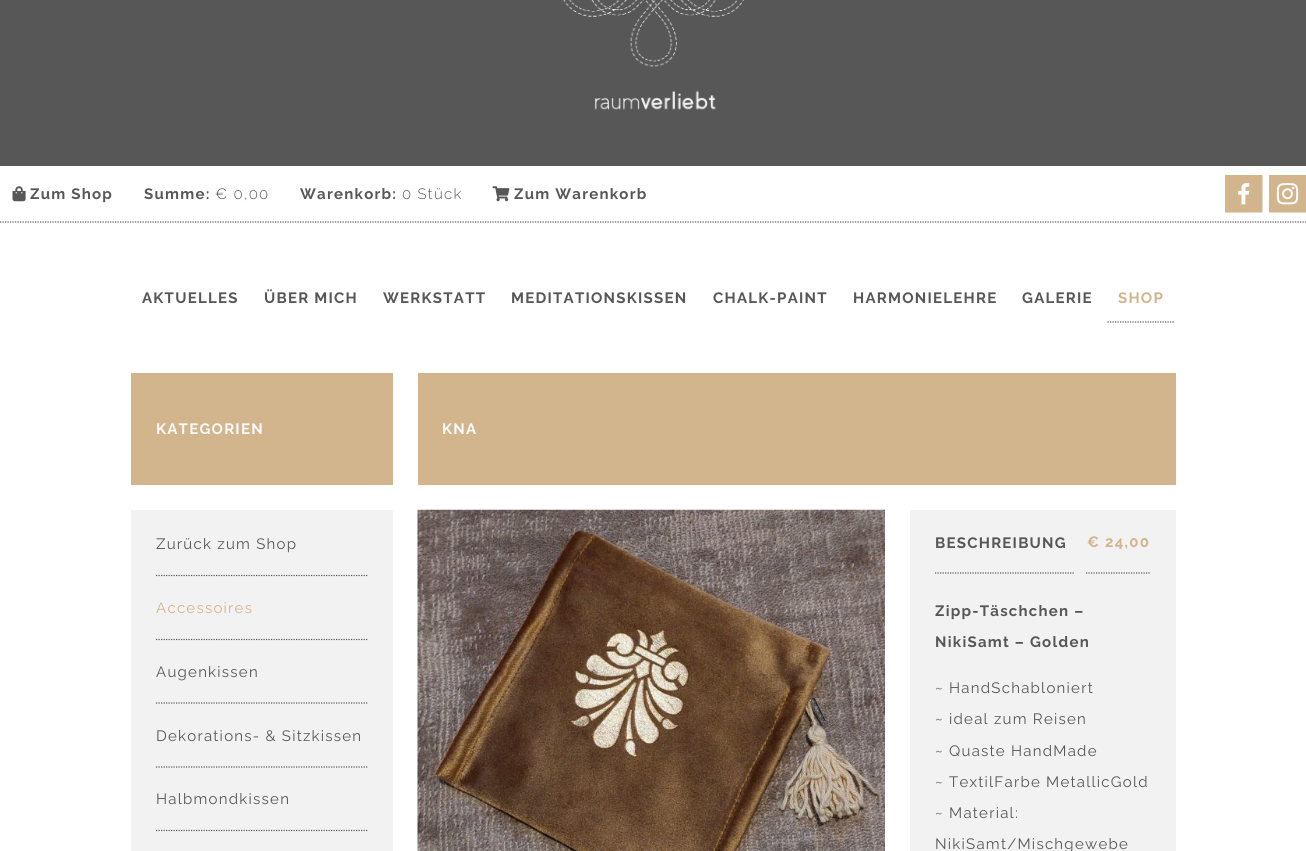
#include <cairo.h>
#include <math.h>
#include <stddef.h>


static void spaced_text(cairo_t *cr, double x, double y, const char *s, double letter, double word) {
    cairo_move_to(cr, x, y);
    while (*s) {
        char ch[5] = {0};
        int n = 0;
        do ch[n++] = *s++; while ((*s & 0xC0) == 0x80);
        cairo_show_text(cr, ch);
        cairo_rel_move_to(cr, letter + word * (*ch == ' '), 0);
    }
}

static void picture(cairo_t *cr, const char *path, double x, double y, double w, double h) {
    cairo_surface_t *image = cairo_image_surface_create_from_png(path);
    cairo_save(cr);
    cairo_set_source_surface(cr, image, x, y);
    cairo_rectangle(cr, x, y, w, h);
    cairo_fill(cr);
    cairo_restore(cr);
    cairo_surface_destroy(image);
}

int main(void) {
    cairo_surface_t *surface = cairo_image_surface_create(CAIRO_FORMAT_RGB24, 1306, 851);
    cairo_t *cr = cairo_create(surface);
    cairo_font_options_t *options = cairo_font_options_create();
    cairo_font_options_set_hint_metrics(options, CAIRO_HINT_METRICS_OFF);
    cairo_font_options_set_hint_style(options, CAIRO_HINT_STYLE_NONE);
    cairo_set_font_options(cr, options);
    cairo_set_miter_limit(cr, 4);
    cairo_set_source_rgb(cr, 1, 1, 1);
    cairo_paint(cr);
    cairo_set_source_rgb(cr, 0.341, 0.341, 0.341);
    cairo_rectangle(cr, 0, 0, 1306, 166);
    cairo_fill(cr);
    picture(cr, "img1.png", 563, 0, 181, 110);
    cairo_new_path(cr);
    cairo_move_to(cr, 0, 222);
    cairo_line_to(cr, 1306, 222);
    cairo_set_line_width(cr, 1.2);
    cairo_set_dash(cr, (double[]){1.25, 1.25}, 2, 0);
    cairo_stroke(cr);
    picture(cr, "img2.png", 12, 186, 14, 16);
    cairo_select_font_face(cr, "Raleway", CAIRO_FONT_SLANT_NORMAL, CAIRO_FONT_WEIGHT_BOLD);
    cairo_set_font_size(cr, 15);
    spaced_text(cr, 30, 199, "Zum Shop", 1.25, 0);
    spaced_text(cr, 144, 199, "Summe:", 1.25, 0);
    cairo_select_font_face(cr, "Raleway Light", CAIRO_FONT_SLANT_NORMAL, CAIRO_FONT_WEIGHT_NORMAL);
    spaced_text(cr, 215, 199, "€ 0,00", 1.25, 0);
    cairo_select_font_face(cr, "Raleway", CAIRO_FONT_SLANT_NORMAL, CAIRO_FONT_WEIGHT_BOLD);
    spaced_text(cr, 300, 199, "Warenkorb:", 1.25, 0);
    cairo_select_font_face(cr, "Raleway Light", CAIRO_FONT_SLANT_NORMAL, CAIRO_FONT_WEIGHT_NORMAL);
    spaced_text(cr, 402, 199, "0 Stück", 1.25, 0);
    picture(cr, "img3.png", 492, 186, 18, 16);
    cairo_select_font_face(cr, "Raleway", CAIRO_FONT_SLANT_NORMAL, CAIRO_FONT_WEIGHT_BOLD);
    spaced_text(cr, 514, 199, "Zum Warenkorb", 1.25, 0);
    picture(cr, "img4.png", 1225, 175, 38, 38);
    picture(cr, "img5.png", 1269, 175, 37, 38);
    spaced_text(cr, 142, 303, "AKTUELLES", 1.25, 0);
    spaced_text(cr, 264, 303, "ÜBER MICH", 1.25, 0);
    spaced_text(cr, 383, 303, "WERKSTATT", 1.25, 0);
    spaced_text(cr, 511, 303, "MEDITATIONSKISSEN", 1.25, 0);
    spaced_text(cr, 713, 303, "CHALK-PAINT", 1.25, 0);
    spaced_text(cr, 853, 303, "HARMONIELEHRE", 1.25, 0);
    spaced_text(cr, 1022, 303, "GALERIE", 1.25, 0);
    cairo_new_path(cr);
    cairo_move_to(cr, 1107.5, 322);
    cairo_line_to(cr, 1174, 322);
    cairo_stroke(cr);
    cairo_set_source_rgb(cr, 0.824, 0.71, 0.553);
    spaced_text(cr, 1118, 303, "SHOP", 1.25, 0);
    cairo_rectangle(cr, 131, 373, 262, 112);
    cairo_fill(cr);
    cairo_set_source_rgb(cr, 0.98, 0.98, 0.98);
    spaced_text(cr, 156, 434, "KATEGORIEN", 1.25, 0);
    cairo_set_source_rgb(cr, 0.949, 0.949, 0.949);
    cairo_rectangle(cr, 131, 510, 262, 341);
    cairo_fill(cr);
    cairo_select_font_face(cr, "Raleway", CAIRO_FONT_SLANT_NORMAL, CAIRO_FONT_WEIGHT_NORMAL);
    cairo_set_source_rgb(cr, 0.341, 0.341, 0.341);
    spaced_text(cr, 156, 549, "Zurück zum Shop", 1.25, 0);
    cairo_new_path(cr);
    cairo_move_to(cr, 156, 575.5);
    cairo_line_to(cr, 367.5, 575.5);
    cairo_stroke(cr);
    cairo_set_source_rgb(cr, 0.824, 0.71, 0.553);
    spaced_text(cr, 156, 613, "Accessoires", 1.25, 0);
    cairo_new_path(cr);
    cairo_move_to(cr, 156, 639.5);
    cairo_line_to(cr, 367.5, 639.5);
    cairo_set_source_rgb(cr, 0.341, 0.341, 0.341);
    cairo_stroke(cr);
    spaced_text(cr, 156, 677, "Augenkissen", 1.25, 0);
    cairo_new_path(cr);
    cairo_move_to(cr, 156, 703);
    cairo_line_to(cr, 367.5, 703);
    cairo_stroke(cr);
    spaced_text(cr, 156, 741, "Dekorations- & Sitzkissen", 1.25, 0);
    cairo_new_path(cr);
    cairo_move_to(cr, 156, 767);
    cairo_line_to(cr, 367.5, 767);
    cairo_stroke(cr);
    spaced_text(cr, 156, 804, "Halbmondkissen", 1.25, 0);
    cairo_new_path(cr);
    cairo_move_to(cr, 156, 830.5);
    cairo_line_to(cr, 367.5, 830.5);
    cairo_stroke(cr);
    cairo_set_source_rgb(cr, 0.824, 0.71, 0.553);
    cairo_rectangle(cr, 418, 373, 758, 112);
    cairo_fill(cr);
    cairo_select_font_face(cr, "Raleway", CAIRO_FONT_SLANT_NORMAL, CAIRO_FONT_WEIGHT_BOLD);
    cairo_set_source_rgb(cr, 0.98, 0.98, 0.98);
    spaced_text(cr, 442, 434, "KNA", 1.25, 0);
    picture(cr, "img6.png", 417, 509, 468, 342);
    cairo_set_source_rgb(cr, 0.949, 0.949, 0.949);
    cairo_rectangle(cr, 910, 510, 266, 341);
    cairo_fill(cr);
    cairo_new_path(cr);
    cairo_move_to(cr, 935, 573);
    cairo_line_to(cr, 1075, 573);
    cairo_set_source_rgb(cr, 0.341, 0.341, 0.341);
    cairo_stroke(cr);
    spaced_text(cr, 935, 548, "BESCHREIBUNG", 1.25, 0);
    cairo_new_path(cr);
    cairo_move_to(cr, 1086, 573);
    cairo_line_to(cr, 1151, 573);
    cairo_stroke(cr);
    cairo_set_source_rgb(cr, 0.824, 0.71, 0.553);
    spaced_text(cr, 1087, 547, "€ 24,00", 1.25, 0);
    cairo_set_source_rgb(cr, 0.341, 0.341, 0.341);
    spaced_text(cr, 935, 616, "Zipp-Täschchen –", 1.25, 0);
    spaced_text(cr, 935, 647, "NikiSamt – Golden", 1.25, 0);
    cairo_select_font_face(cr, "Raleway", CAIRO_FONT_SLANT_NORMAL, CAIRO_FONT_WEIGHT_NORMAL);
    spaced_text(cr, 935, 693, "~ HandSchabloniert", 1.25, 0);
    spaced_text(cr, 935, 724, "~ ideal zum Reisen", 1.25, 0);
    spaced_text(cr, 935, 756, "~ Quaste HandMade", 1.25, 0);
    spaced_text(cr, 935, 787, "~ TextilFarbe MetallicGold", 1.25, 0);
    spaced_text(cr, 935, 818, "~ Material:", 1.25, 0);
    spaced_text(cr, 935, 849, "NikiSamt/Mischgewebe", 1.25, 0);
    cairo_surface_write_to_png(surface, "page.png");
    cairo_font_options_destroy(options);
    cairo_destroy(cr);
    cairo_surface_destroy(surface);
    return 0;
}
